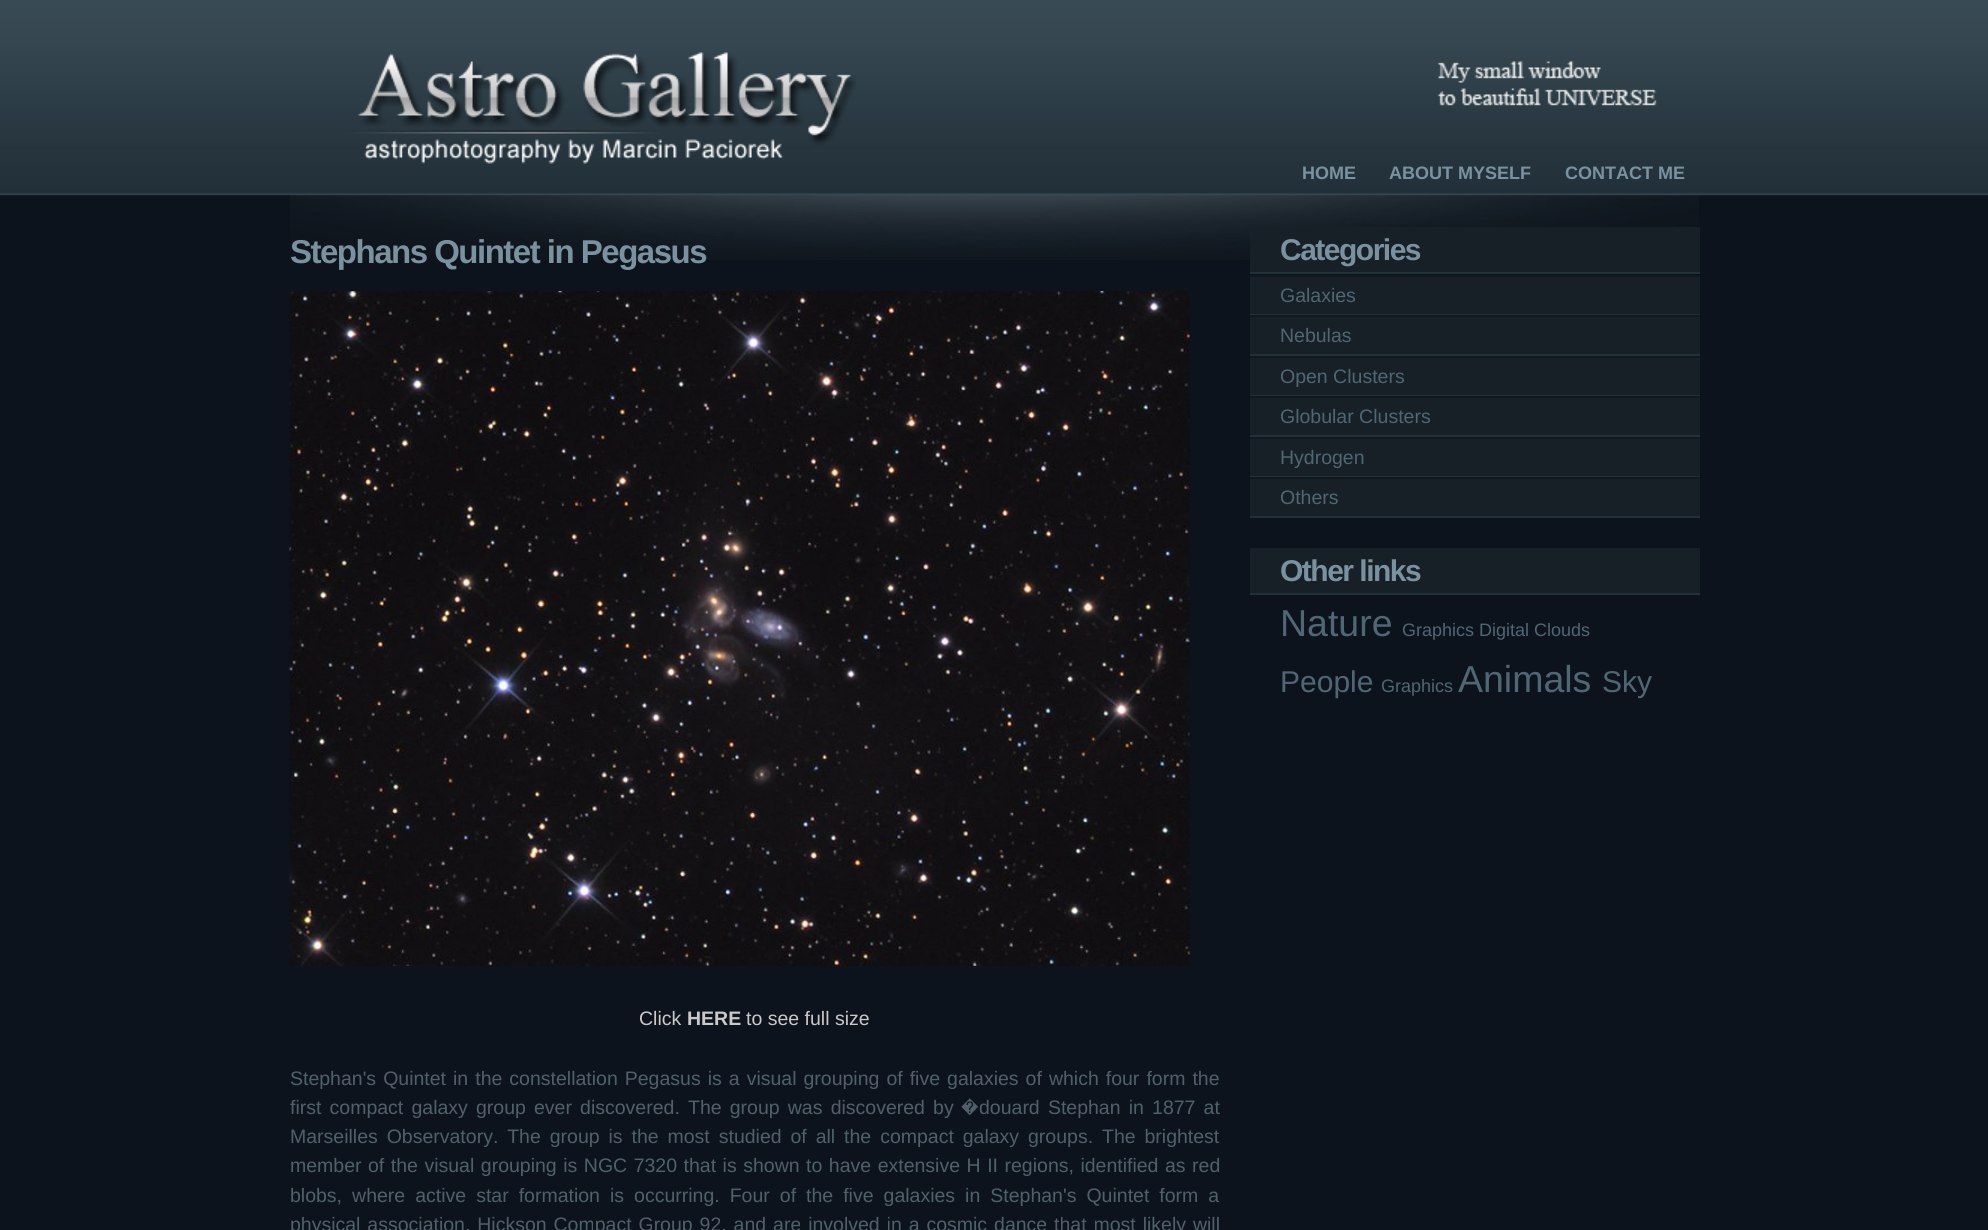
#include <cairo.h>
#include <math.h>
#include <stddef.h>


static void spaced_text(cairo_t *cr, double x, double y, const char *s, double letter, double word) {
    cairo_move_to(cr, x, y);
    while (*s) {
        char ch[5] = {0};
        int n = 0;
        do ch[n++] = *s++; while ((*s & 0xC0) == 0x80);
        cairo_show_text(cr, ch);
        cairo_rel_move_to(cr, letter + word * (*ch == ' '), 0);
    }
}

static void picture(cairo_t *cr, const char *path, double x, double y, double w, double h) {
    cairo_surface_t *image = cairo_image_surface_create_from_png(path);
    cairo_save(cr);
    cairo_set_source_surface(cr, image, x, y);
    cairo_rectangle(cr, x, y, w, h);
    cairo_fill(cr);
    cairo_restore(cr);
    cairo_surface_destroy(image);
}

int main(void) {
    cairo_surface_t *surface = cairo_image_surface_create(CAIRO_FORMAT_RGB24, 1988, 1230);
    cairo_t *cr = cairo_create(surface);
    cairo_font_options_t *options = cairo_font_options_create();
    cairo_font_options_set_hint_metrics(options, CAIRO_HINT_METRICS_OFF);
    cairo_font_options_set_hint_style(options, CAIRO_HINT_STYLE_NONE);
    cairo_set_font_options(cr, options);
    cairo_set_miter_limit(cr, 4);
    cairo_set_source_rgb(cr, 0.051, 0.078, 0.11);
    cairo_paint(cr);
    picture(cr, "img1.png", 0, 0, 1988, 196);
    picture(cr, "img2.png", 290, 194, 1409, 66);
    picture(cr, "img3.png", 351, 52, 505, 112);
    picture(cr, "img4.png", 1437, 61, 220, 45);
    cairo_select_font_face(cr, "Liberation Sans", CAIRO_FONT_SLANT_NORMAL, CAIRO_FONT_WEIGHT_BOLD);
    cairo_set_font_size(cr, 18);
    cairo_set_source_rgb(cr, 0.478, 0.573, 0.624);
    cairo_move_to(cr, 1302, 179);
    cairo_show_text(cr, "HOME");
    cairo_move_to(cr, 1389, 179);
    cairo_show_text(cr, "ABOUT MYSELF");
    cairo_move_to(cr, 1565, 179);
    cairo_show_text(cr, "CONTACT ME");
    cairo_set_font_size(cr, 33);
    spaced_text(cr, 290, 263, "Stephans Quintet in Pegasus", -1.5, 0);
    picture(cr, "img5.png", 289, 291, 901, 675);
    cairo_select_font_face(cr, "Liberation Sans", CAIRO_FONT_SLANT_NORMAL, CAIRO_FONT_WEIGHT_NORMAL);
    cairo_set_font_size(cr, 19.5);
    cairo_set_source_rgb(cr, 0.788, 0.788, 0.788);
    cairo_move_to(cr, 639, 1025);
    cairo_show_text(cr, "Click");
    cairo_select_font_face(cr, "Liberation Sans", CAIRO_FONT_SLANT_NORMAL, CAIRO_FONT_WEIGHT_BOLD);
    cairo_move_to(cr, 687, 1025);
    cairo_show_text(cr, "HERE");
    cairo_select_font_face(cr, "Liberation Sans", CAIRO_FONT_SLANT_NORMAL, CAIRO_FONT_WEIGHT_NORMAL);
    cairo_move_to(cr, 746, 1025);
    cairo_show_text(cr, "to see full size");
    cairo_set_source_rgb(cr, 0.314, 0.376, 0.42);
    spaced_text(cr, 290, 1085, "Stephan's Quintet in the constellation Pegasus is a visual grouping of five galaxies of which four form the", 0, 1.6);
    spaced_text(cr, 290, 1114, "first compact galaxy group ever discovered. The group was discovered by", 0, 2.75);
    cairo_select_font_face(cr, "FreeSans", CAIRO_FONT_SLANT_NORMAL, CAIRO_FONT_WEIGHT_NORMAL);
    cairo_move_to(cr, 961, 1114);
    cairo_show_text(cr, "�");
    cairo_select_font_face(cr, "Liberation Sans", CAIRO_FONT_SLANT_NORMAL, CAIRO_FONT_WEIGHT_NORMAL);
    spaced_text(cr, 979, 1114, "douard Stephan in 1877 at", 0, 2.75);
    spaced_text(cr, 290, 1143, "Marseilles Observatory. The group is the most studied of all the compact galaxy groups. The brightest", 0, 3.5);
    spaced_text(cr, 290, 1172, "member of the visual grouping is NGC 7320 that is shown to have extensive H II regions, identified as red", 0, 1.1);
    spaced_text(cr, 290, 1202, "blobs, where active star formation is occurring. Four of the five galaxies in Stephan's Quintet form a", 0, 4.6);
    spaced_text(cr, 290, 1231, "physical association, Hickson Compact Group 92, and are involved in a cosmic dance that most likely will", 0, 1.5);
    cairo_set_source_rgb(cr, 0.086, 0.125, 0.149);
    cairo_rectangle(cr, 1250, 227, 450, 45);
    cairo_fill(cr);
    cairo_set_source_rgb(cr, 0.133, 0.188, 0.224);
    cairo_rectangle(cr, 1250, 272, 450, 2);
    cairo_fill(cr);
    cairo_select_font_face(cr, "Liberation Sans", CAIRO_FONT_SLANT_NORMAL, CAIRO_FONT_WEIGHT_BOLD);
    cairo_set_font_size(cr, 30);
    cairo_set_source_rgb(cr, 0.478, 0.573, 0.624);
    spaced_text(cr, 1280, 260, "Categories", -1.5, 0);
    cairo_set_source_rgb(cr, 0.086, 0.125, 0.149);
    cairo_rectangle(cr, 1250, 277, 450, 37);
    cairo_fill(cr);
    cairo_set_source_rgb(cr, 0.067, 0.098, 0.122);
    cairo_rectangle(cr, 1250, 275, 450, 2);
    cairo_fill(cr);
    cairo_set_source_rgb(cr, 0.133, 0.188, 0.224);
    cairo_rectangle(cr, 1250, 314, 450, 1);
    cairo_fill(cr);
    cairo_select_font_face(cr, "Liberation Sans", CAIRO_FONT_SLANT_NORMAL, CAIRO_FONT_WEIGHT_NORMAL);
    cairo_set_font_size(cr, 19.5);
    cairo_set_source_rgb(cr, 0.31, 0.4, 0.451);
    cairo_move_to(cr, 1280, 302);
    cairo_show_text(cr, "Galaxies");
    cairo_set_source_rgb(cr, 0.086, 0.125, 0.149);
    cairo_rectangle(cr, 1250, 317, 450, 37);
    cairo_fill(cr);
    cairo_set_source_rgb(cr, 0.067, 0.098, 0.122);
    cairo_rectangle(cr, 1250, 315, 450, 2);
    cairo_fill(cr);
    cairo_set_source_rgb(cr, 0.133, 0.188, 0.224);
    cairo_rectangle(cr, 1250, 354, 450, 2);
    cairo_fill(cr);
    cairo_set_source_rgb(cr, 0.31, 0.4, 0.451);
    cairo_move_to(cr, 1280, 342);
    cairo_show_text(cr, "Nebulas");
    cairo_set_source_rgb(cr, 0.086, 0.125, 0.149);
    cairo_rectangle(cr, 1250, 358, 450, 37);
    cairo_fill(cr);
    cairo_set_source_rgb(cr, 0.067, 0.098, 0.122);
    cairo_rectangle(cr, 1250, 356, 450, 2);
    cairo_fill(cr);
    cairo_set_source_rgb(cr, 0.133, 0.188, 0.224);
    cairo_rectangle(cr, 1250, 395, 450, 1);
    cairo_fill(cr);
    cairo_set_source_rgb(cr, 0.31, 0.4, 0.451);
    cairo_move_to(cr, 1280, 383);
    cairo_show_text(cr, "Open Clusters");
    cairo_set_source_rgb(cr, 0.086, 0.125, 0.149);
    cairo_rectangle(cr, 1250, 398, 450, 37);
    cairo_fill(cr);
    cairo_set_source_rgb(cr, 0.067, 0.098, 0.122);
    cairo_rectangle(cr, 1250, 396, 450, 2);
    cairo_fill(cr);
    cairo_set_source_rgb(cr, 0.133, 0.188, 0.224);
    cairo_rectangle(cr, 1250, 435, 450, 2);
    cairo_fill(cr);
    cairo_set_source_rgb(cr, 0.31, 0.4, 0.451);
    cairo_move_to(cr, 1280, 423);
    cairo_show_text(cr, "Globular Clusters");
    cairo_set_source_rgb(cr, 0.086, 0.125, 0.149);
    cairo_rectangle(cr, 1250, 439, 450, 37);
    cairo_fill(cr);
    cairo_set_source_rgb(cr, 0.067, 0.098, 0.122);
    cairo_rectangle(cr, 1250, 437, 450, 2);
    cairo_fill(cr);
    cairo_set_source_rgb(cr, 0.133, 0.188, 0.224);
    cairo_rectangle(cr, 1250, 476, 450, 1);
    cairo_fill(cr);
    cairo_set_source_rgb(cr, 0.31, 0.4, 0.451);
    cairo_move_to(cr, 1280, 464);
    cairo_show_text(cr, "Hydrogen");
    cairo_set_source_rgb(cr, 0.086, 0.125, 0.149);
    cairo_rectangle(cr, 1250, 479, 450, 37);
    cairo_fill(cr);
    cairo_set_source_rgb(cr, 0.067, 0.098, 0.122);
    cairo_rectangle(cr, 1250, 477, 450, 2);
    cairo_fill(cr);
    cairo_set_source_rgb(cr, 0.133, 0.188, 0.224);
    cairo_rectangle(cr, 1250, 516, 450, 2);
    cairo_fill(cr);
    cairo_set_source_rgb(cr, 0.31, 0.4, 0.451);
    cairo_move_to(cr, 1280, 504);
    cairo_show_text(cr, "Others");
    cairo_set_source_rgb(cr, 0.086, 0.125, 0.149);
    cairo_rectangle(cr, 1250, 548, 450, 45);
    cairo_fill(cr);
    cairo_set_source_rgb(cr, 0.133, 0.188, 0.224);
    cairo_rectangle(cr, 1250, 593, 450, 2);
    cairo_fill(cr);
    cairo_select_font_face(cr, "Liberation Sans", CAIRO_FONT_SLANT_NORMAL, CAIRO_FONT_WEIGHT_BOLD);
    cairo_set_font_size(cr, 30);
    cairo_set_source_rgb(cr, 0.478, 0.573, 0.624);
    spaced_text(cr, 1280, 581, "Other links", -1.5, 0);
    cairo_select_font_face(cr, "Liberation Sans", CAIRO_FONT_SLANT_NORMAL, CAIRO_FONT_WEIGHT_NORMAL);
    cairo_set_font_size(cr, 37.5);
    cairo_set_source_rgb(cr, 0.31, 0.4, 0.451);
    cairo_move_to(cr, 1280, 636);
    cairo_show_text(cr, "Nature");
    cairo_set_font_size(cr, 18);
    cairo_move_to(cr, 1402, 636);
    cairo_show_text(cr, "Graphics Digital Clouds");
    cairo_set_font_size(cr, 30);
    cairo_move_to(cr, 1280, 692);
    cairo_show_text(cr, "People");
    cairo_set_font_size(cr, 18);
    cairo_move_to(cr, 1381, 692);
    cairo_show_text(cr, "Graphics");
    cairo_set_font_size(cr, 37.5);
    cairo_move_to(cr, 1458, 692);
    cairo_show_text(cr, "Animals");
    cairo_set_font_size(cr, 30);
    cairo_move_to(cr, 1602, 692);
    cairo_show_text(cr, "Sky");
    cairo_surface_write_to_png(surface, "page.png");
    cairo_font_options_destroy(options);
    cairo_destroy(cr);
    cairo_surface_destroy(surface);
    return 0;
}
